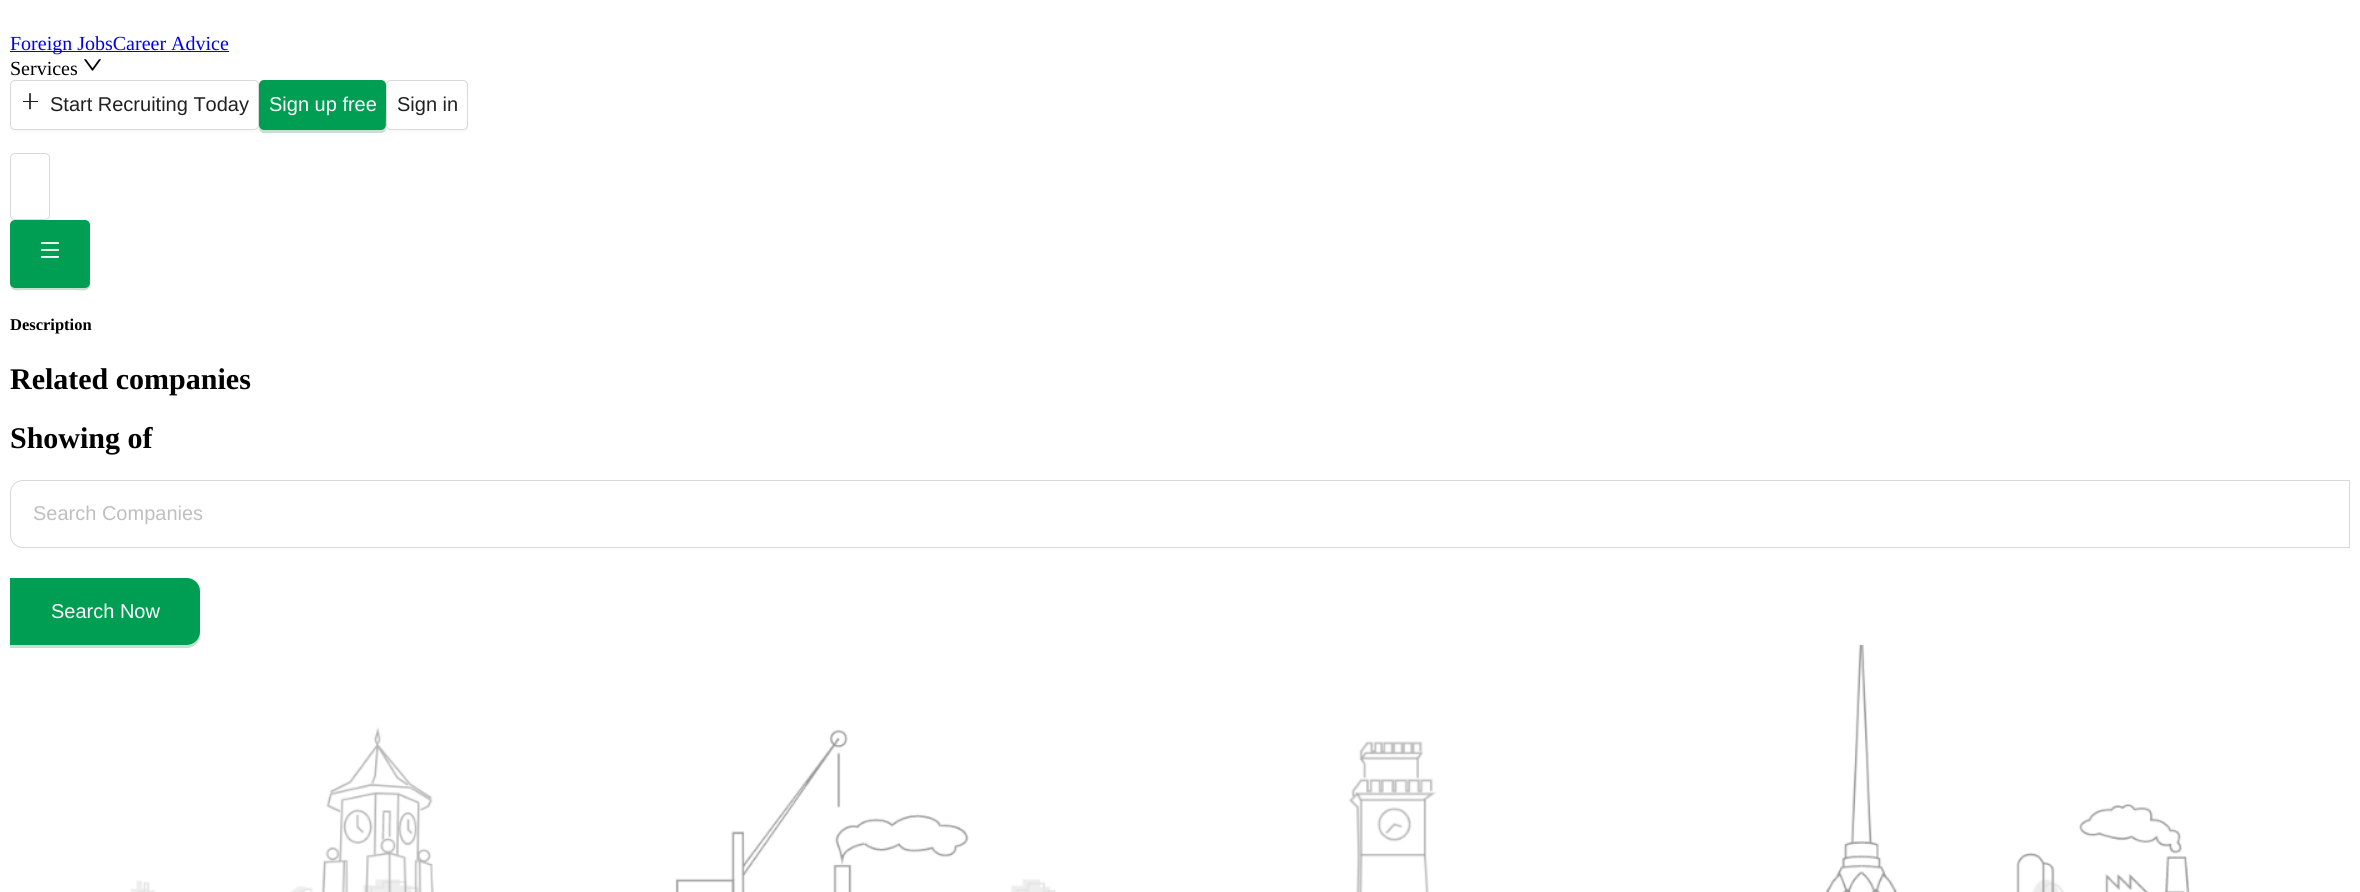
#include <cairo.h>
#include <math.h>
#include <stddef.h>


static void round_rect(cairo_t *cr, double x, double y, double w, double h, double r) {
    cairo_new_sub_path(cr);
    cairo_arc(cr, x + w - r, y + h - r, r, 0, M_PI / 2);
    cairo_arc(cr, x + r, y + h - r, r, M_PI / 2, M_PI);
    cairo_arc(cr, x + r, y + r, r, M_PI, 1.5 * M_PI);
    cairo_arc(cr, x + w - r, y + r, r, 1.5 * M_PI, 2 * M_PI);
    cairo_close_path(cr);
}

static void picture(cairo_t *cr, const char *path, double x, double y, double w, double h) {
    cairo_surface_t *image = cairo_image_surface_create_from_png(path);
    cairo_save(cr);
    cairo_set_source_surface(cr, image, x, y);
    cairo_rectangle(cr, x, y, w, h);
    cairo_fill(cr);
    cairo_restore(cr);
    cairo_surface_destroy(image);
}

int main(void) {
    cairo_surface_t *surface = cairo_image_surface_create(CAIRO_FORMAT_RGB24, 2360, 892);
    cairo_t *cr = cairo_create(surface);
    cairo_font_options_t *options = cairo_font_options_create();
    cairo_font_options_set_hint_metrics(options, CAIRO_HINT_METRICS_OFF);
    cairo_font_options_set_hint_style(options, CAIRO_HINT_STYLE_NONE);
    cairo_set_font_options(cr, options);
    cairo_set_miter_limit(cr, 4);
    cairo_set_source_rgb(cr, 1, 1, 1);
    cairo_paint(cr);
    cairo_set_source_rgb(cr, 0, 0, 0.933);
    cairo_rectangle(cr, 10, 51, 219, 1);
    cairo_fill(cr);
    cairo_select_font_face(cr, "Liberation Serif", CAIRO_FONT_SLANT_NORMAL, CAIRO_FONT_WEIGHT_NORMAL);
    cairo_set_font_size(cr, 20);
    cairo_move_to(cr, 10, 50);
    cairo_show_text(cr, "Foreign JobsCareer Advice");
    cairo_set_source_rgb(cr, 0, 0, 0);
    cairo_move_to(cr, 10, 75);
    cairo_show_text(cr, "Services");
    picture(cr, "img1.png", 84, 59, 17, 12);
    cairo_set_source_rgb(cr, 0.98, 0.98, 0.98);
    cairo_new_path(cr);
    cairo_move_to(cr, 10, 125);
    cairo_line_to(cr, 10, 128);
    cairo_curve_to(cr, 10, 131, 12, 133, 15, 133);
    cairo_line_to(cr, 254, 133);
    cairo_curve_to(cr, 257, 133, 259, 131, 259, 128);
    cairo_line_to(cr, 259, 86);
    cairo_line_to(cr, 259, 125);
    cairo_curve_to(cr, 259, 128, 257, 130, 254, 130);
    cairo_line_to(cr, 15, 130);
    cairo_curve_to(cr, 12, 130, 10, 128, 10, 125);
    cairo_close_path(cr);
    cairo_fill(cr);
    round_rect(cr, 10.5, 80.5, 248, 49, 4.5);
    cairo_set_source_rgb(cr, 0.851, 0.851, 0.851);
    cairo_set_line_width(cr, 1);
    cairo_stroke(cr);
    picture(cr, "img2.png", 23, 93, 15, 17);
    cairo_select_font_face(cr, "Liberation Sans", CAIRO_FONT_SLANT_NORMAL, CAIRO_FONT_WEIGHT_NORMAL);
    cairo_set_source_rgb(cr, 0.129, 0.129, 0.129);
    cairo_move_to(cr, 50, 111);
    cairo_show_text(cr, "Start Recruiting Today");
    cairo_set_source_rgb(cr, 0.784, 0.871, 0.812);
    cairo_new_path(cr);
    cairo_move_to(cr, 259, 127);
    cairo_line_to(cr, 259, 128);
    cairo_curve_to(cr, 259, 131, 261, 133, 264, 133);
    cairo_line_to(cr, 381, 133);
    cairo_curve_to(cr, 384, 133, 386, 131, 386, 128);
    cairo_line_to(cr, 386, 127);
    cairo_curve_to(cr, 385, 129, 383, 130, 381, 130);
    cairo_line_to(cr, 264, 130);
    cairo_curve_to(cr, 262, 130, 260, 129, 259, 127);
    cairo_close_path(cr);
    cairo_fill(cr);
    cairo_set_source_rgb(cr, 0, 0.62, 0.322);
    round_rect(cr, 259, 80, 127, 50, 5);
    cairo_fill(cr);
    cairo_set_source_rgb(cr, 1, 1, 1);
    cairo_move_to(cr, 269, 111);
    cairo_show_text(cr, "Sign up free");
    cairo_set_source_rgb(cr, 0.98, 0.98, 0.98);
    cairo_new_path(cr);
    cairo_move_to(cr, 386, 86);
    cairo_line_to(cr, 386, 115);
    cairo_curve_to(cr, 386, 134, 383, 133, 403, 133);
    cairo_line_to(cr, 451, 133);
    cairo_curve_to(cr, 471, 133, 468, 134, 468, 115);
    cairo_line_to(cr, 468, 95);
    cairo_curve_to(cr, 468, 93, 469, 88, 468, 86);
    cairo_line_to(cr, 468, 125);
    cairo_curve_to(cr, 468, 128, 465, 130, 462, 130);
    cairo_line_to(cr, 391, 130);
    cairo_curve_to(cr, 388, 130, 386, 128, 386, 125);
    cairo_close_path(cr);
    cairo_fill(cr);
    round_rect(cr, 386.5, 80.5, 81, 49, 4.5);
    cairo_set_source_rgb(cr, 0.851, 0.851, 0.851);
    cairo_stroke(cr);
    cairo_set_source_rgb(cr, 0.129, 0.129, 0.129);
    cairo_move_to(cr, 397, 111);
    cairo_show_text(cr, "Sign in");
    cairo_set_source_rgb(cr, 0.98, 0.98, 0.98);
    cairo_new_path(cr);
    cairo_move_to(cr, 10, 215);
    cairo_curve_to(cr, 10, 223, 12, 223, 20, 223);
    cairo_line_to(cr, 40, 223);
    cairo_curve_to(cr, 48, 223, 50, 223, 50, 215);
    cairo_curve_to(cr, 50, 218, 48, 220, 45, 220);
    cairo_line_to(cr, 15, 220);
    cairo_curve_to(cr, 12, 220, 10, 218, 10, 215);
    cairo_close_path(cr);
    cairo_fill(cr);
    round_rect(cr, 10.5, 153.5, 39, 66, 4.5);
    cairo_set_source_rgb(cr, 0.851, 0.851, 0.851);
    cairo_stroke(cr);
    cairo_set_source_rgb(cr, 0.784, 0.871, 0.812);
    cairo_new_path(cr);
    cairo_move_to(cr, 10, 282);
    cairo_curve_to(cr, 10, 293, 17, 290, 27, 290);
    cairo_line_to(cr, 73, 290);
    cairo_curve_to(cr, 83, 290, 90, 293, 90, 282);
    cairo_curve_to(cr, 90, 285, 88, 288, 85, 288);
    cairo_line_to(cr, 15, 288);
    cairo_curve_to(cr, 12, 288, 10, 285, 10, 282);
    cairo_close_path(cr);
    cairo_fill(cr);
    cairo_set_source_rgb(cr, 0, 0.62, 0.322);
    round_rect(cr, 10, 220, 80, 68, 5);
    cairo_fill(cr);
    picture(cr, "img3.png", 41, 242, 18, 16);
    cairo_select_font_face(cr, "Liberation Serif", CAIRO_FONT_SLANT_NORMAL, CAIRO_FONT_WEIGHT_BOLD);
    cairo_set_font_size(cr, 16.5);
    cairo_set_source_rgb(cr, 0, 0, 0);
    cairo_move_to(cr, 10, 330);
    cairo_show_text(cr, "Description");
    cairo_set_font_size(cr, 30);
    cairo_move_to(cr, 10, 389);
    cairo_show_text(cr, "Related companies");
    cairo_move_to(cr, 10, 448);
    cairo_show_text(cr, "Showing of");
    cairo_new_path(cr);
    cairo_move_to(cr, 23, 480.5);
    cairo_line_to(cr, 2349.5, 480.5);
    cairo_line_to(cr, 2349.5, 547.5);
    cairo_line_to(cr, 23, 547.5);
    cairo_curve_to(cr, 16, 547.5, 10.5, 542, 10.5, 535);
    cairo_line_to(cr, 10.5, 493);
    cairo_curve_to(cr, 10.5, 486, 16, 480.5, 23, 480.5);
    cairo_close_path(cr);
    cairo_set_source_rgb(cr, 0.851, 0.851, 0.851);
    cairo_stroke(cr);
    cairo_select_font_face(cr, "Liberation Sans", CAIRO_FONT_SLANT_NORMAL, CAIRO_FONT_WEIGHT_NORMAL);
    cairo_set_font_size(cr, 20);
    cairo_set_source_rgb(cr, 0.749, 0.749, 0.749);
    cairo_move_to(cr, 33, 520);
    cairo_show_text(cr, "Search Companies");
    picture(cr, "img4.png", 130, 645, 2060, 247);
    cairo_set_source_rgb(cr, 0.784, 0.871, 0.812);
    cairo_new_path(cr);
    cairo_move_to(cr, 10, 645);
    cairo_line_to(cr, 10, 648);
    cairo_line_to(cr, 187, 648);
    cairo_curve_to(cr, 194, 648, 200, 642, 200, 635);
    cairo_line_to(cr, 200, 632);
    cairo_curve_to(cr, 200, 639, 194, 645, 188, 645);
    cairo_close_path(cr);
    cairo_fill(cr);
    cairo_set_source_rgb(cr, 0, 0.62, 0.322);
    cairo_new_path(cr);
    cairo_move_to(cr, 10, 578);
    cairo_line_to(cr, 187, 578);
    cairo_curve_to(cr, 194, 578, 200, 584, 200, 591);
    cairo_line_to(cr, 200, 632);
    cairo_curve_to(cr, 200, 639, 194, 645, 187, 645);
    cairo_line_to(cr, 10, 645);
    cairo_close_path(cr);
    cairo_fill(cr);
    cairo_set_source_rgb(cr, 1, 1, 1);
    cairo_move_to(cr, 51, 618);
    cairo_show_text(cr, "Search Now");
    cairo_surface_write_to_png(surface, "page.png");
    cairo_font_options_destroy(options);
    cairo_destroy(cr);
    cairo_surface_destroy(surface);
    return 0;
}
